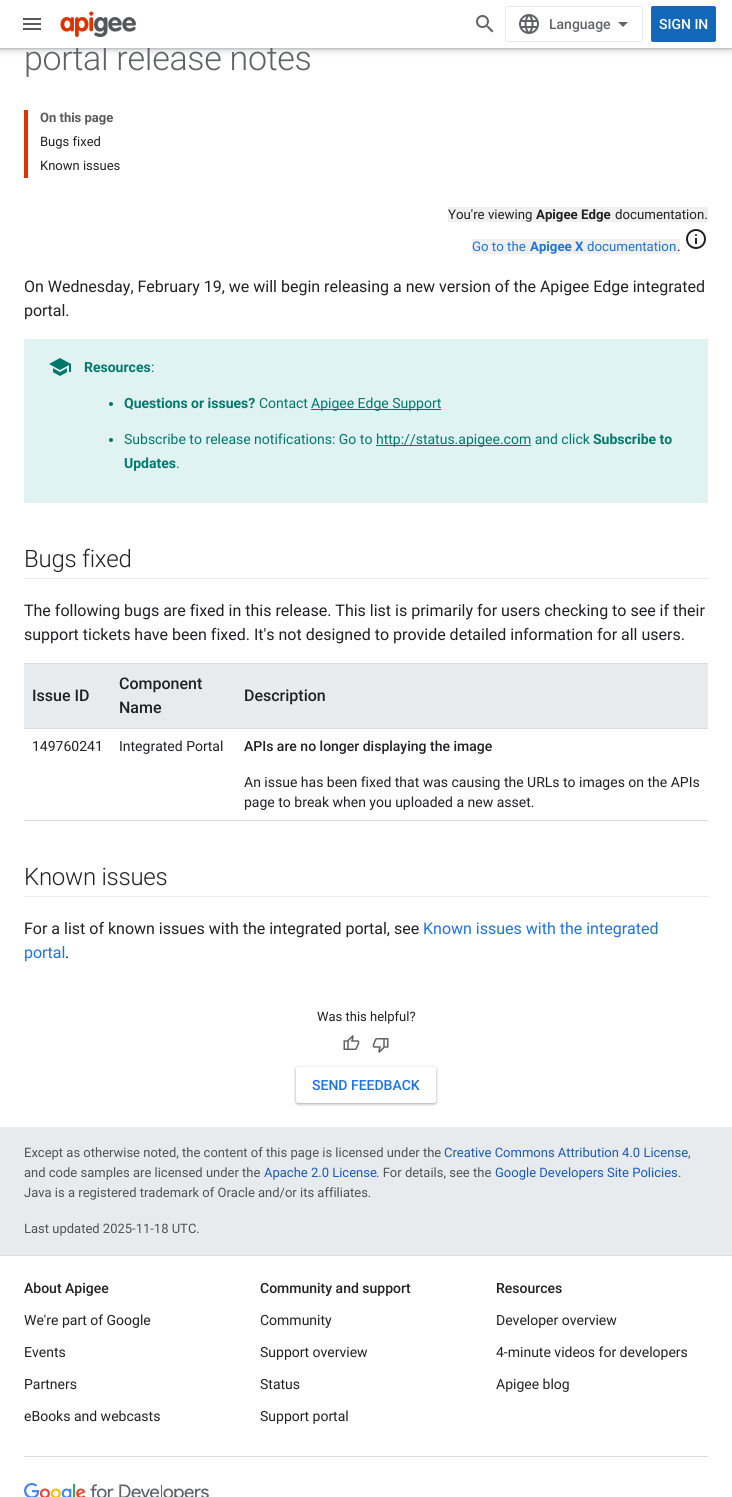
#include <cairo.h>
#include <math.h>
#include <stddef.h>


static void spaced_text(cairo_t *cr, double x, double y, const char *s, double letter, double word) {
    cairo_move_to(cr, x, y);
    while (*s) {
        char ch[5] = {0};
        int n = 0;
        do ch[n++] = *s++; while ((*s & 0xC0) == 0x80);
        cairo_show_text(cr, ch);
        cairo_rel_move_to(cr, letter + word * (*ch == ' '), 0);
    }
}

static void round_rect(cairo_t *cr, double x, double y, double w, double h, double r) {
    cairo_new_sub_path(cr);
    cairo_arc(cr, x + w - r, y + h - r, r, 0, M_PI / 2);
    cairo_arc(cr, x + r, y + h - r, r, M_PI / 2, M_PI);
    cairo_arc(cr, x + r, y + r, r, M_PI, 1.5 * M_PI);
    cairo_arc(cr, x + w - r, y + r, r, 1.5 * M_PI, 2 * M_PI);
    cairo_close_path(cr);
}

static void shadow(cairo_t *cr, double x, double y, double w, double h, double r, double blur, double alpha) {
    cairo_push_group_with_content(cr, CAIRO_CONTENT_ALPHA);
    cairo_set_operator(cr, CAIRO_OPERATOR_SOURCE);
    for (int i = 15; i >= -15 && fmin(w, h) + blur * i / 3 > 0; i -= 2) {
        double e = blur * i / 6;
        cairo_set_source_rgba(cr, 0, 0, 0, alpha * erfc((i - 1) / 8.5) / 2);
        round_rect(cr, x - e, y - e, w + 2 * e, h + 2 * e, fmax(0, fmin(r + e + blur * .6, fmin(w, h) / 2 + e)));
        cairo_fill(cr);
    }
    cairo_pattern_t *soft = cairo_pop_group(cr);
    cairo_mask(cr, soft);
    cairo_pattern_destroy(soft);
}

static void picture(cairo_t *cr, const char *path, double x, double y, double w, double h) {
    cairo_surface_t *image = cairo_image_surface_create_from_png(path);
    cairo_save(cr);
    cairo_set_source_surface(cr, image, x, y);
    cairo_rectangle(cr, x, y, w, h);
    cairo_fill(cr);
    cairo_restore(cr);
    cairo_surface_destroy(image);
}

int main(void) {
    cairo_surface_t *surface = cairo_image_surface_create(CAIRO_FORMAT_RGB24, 732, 1497);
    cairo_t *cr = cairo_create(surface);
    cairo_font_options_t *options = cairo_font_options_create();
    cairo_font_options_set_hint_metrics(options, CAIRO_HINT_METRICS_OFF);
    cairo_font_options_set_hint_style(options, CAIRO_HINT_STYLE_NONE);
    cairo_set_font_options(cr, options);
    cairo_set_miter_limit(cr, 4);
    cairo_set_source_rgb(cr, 0.91, 0.918, 0.929);
    cairo_paint(cr);
    cairo_set_source_rgb(cr, 1, 1, 1);
    cairo_rectangle(cr, 0, 48, 732, 1079);
    cairo_fill(cr);
    cairo_set_source_rgb(cr, 0.235, 0.251, 0.263);
    shadow(cr, -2, -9, 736, 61, 0, 3, 0.15);
    shadow(cr, 0, -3, 732, 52, 0, 1, 0.3);
    cairo_select_font_face(cr, "Roboto Light", CAIRO_FONT_SLANT_NORMAL, CAIRO_FONT_WEIGHT_NORMAL);
    cairo_set_font_size(cr, 34);
    cairo_set_source_rgb(cr, 0.373, 0.388, 0.408);
    spaced_text(cr, 24, 70, "portal release notes", -0.3, 0);
    cairo_set_source_rgb(cr, 1, 1, 1);
    cairo_rectangle(cr, 0, 0, 732, 48);
    cairo_fill(cr);
    picture(cr, "img1.png", 23, 18, 18, 12);
    picture(cr, "img2.png", 60, 11, 76, 26);
    picture(cr, "img3.png", 476, 15, 18, 18);
    round_rect(cr, 505.5, 6.5, 137, 35, 1.5);
    cairo_set_source_rgb(cr, 0.91, 0.918, 0.929);
    cairo_set_line_width(cr, 1);
    cairo_stroke(cr);
    picture(cr, "img4.png", 519, 14, 20, 20);
    cairo_select_font_face(cr, "Roboto Medium", CAIRO_FONT_SLANT_NORMAL, CAIRO_FONT_WEIGHT_NORMAL);
    cairo_set_font_size(cr, 14);
    cairo_set_source_rgb(cr, 0.373, 0.388, 0.408);
    cairo_move_to(cr, 549, 29);
    cairo_show_text(cr, "Language");
    cairo_new_path(cr);
    cairo_move_to(cr, 623, 27);
    cairo_line_to(cr, 618, 22);
    cairo_line_to(cr, 628, 22);
    cairo_close_path(cr);
    cairo_fill(cr);
    cairo_set_source_rgb(cr, 0.082, 0.408, 0.729);
    round_rect(cr, 651, 6, 65, 36, 2);
    cairo_fill(cr);
    cairo_set_source_rgb(cr, 1, 1, 1);
    cairo_move_to(cr, 659, 29);
    cairo_show_text(cr, "SIGN IN");
    cairo_set_source_rgb(cr, 0.867, 0.2, 0.012);
    cairo_rectangle(cr, 24, 110, 4, 68);
    cairo_fill(cr);
    cairo_select_font_face(cr, "Roboto", CAIRO_FONT_SLANT_NORMAL, CAIRO_FONT_WEIGHT_BOLD);
    cairo_set_font_size(cr, 13);
    cairo_set_source_rgb(cr, 0.349, 0.349, 0.349);
    cairo_move_to(cr, 40, 122);
    cairo_show_text(cr, "On this page");
    cairo_select_font_face(cr, "Roboto", CAIRO_FONT_SLANT_NORMAL, CAIRO_FONT_WEIGHT_NORMAL);
    cairo_set_source_rgb(cr, 0.125, 0.129, 0.141);
    cairo_move_to(cr, 40, 146);
    cairo_show_text(cr, "Bugs fixed");
    cairo_move_to(cr, 40, 170);
    cairo_show_text(cr, "Known issues");
    cairo_set_source_rgb(cr, 0.941, 0.941, 0.941);
    cairo_rectangle(cr, 448, 207, 260, 15);
    cairo_fill(cr);
    cairo_set_font_size(cr, 13.25);
    cairo_set_source_rgb(cr, 0.125, 0.129, 0.141);
    cairo_move_to(cr, 448, 219);
    cairo_show_text(cr, "You're viewing");
    cairo_select_font_face(cr, "Roboto", CAIRO_FONT_SLANT_NORMAL, CAIRO_FONT_WEIGHT_BOLD);
    cairo_move_to(cr, 536, 219);
    cairo_show_text(cr, "Apigee Edge");
    cairo_select_font_face(cr, "Roboto", CAIRO_FONT_SLANT_NORMAL, CAIRO_FONT_WEIGHT_NORMAL);
    cairo_move_to(cr, 615, 219);
    cairo_show_text(cr, "documentation.");
    cairo_set_source_rgb(cr, 0.941, 0.941, 0.941);
    cairo_rectangle(cr, 472, 239, 208, 15);
    cairo_fill(cr);
    cairo_set_source_rgb(cr, 0.102, 0.451, 0.91);
    cairo_move_to(cr, 472, 251);
    cairo_show_text(cr, "Go to the");
    cairo_select_font_face(cr, "Roboto", CAIRO_FONT_SLANT_NORMAL, CAIRO_FONT_WEIGHT_BOLD);
    cairo_move_to(cr, 530, 251);
    cairo_show_text(cr, "Apigee X");
    cairo_select_font_face(cr, "Roboto", CAIRO_FONT_SLANT_NORMAL, CAIRO_FONT_WEIGHT_NORMAL);
    cairo_move_to(cr, 587, 251);
    cairo_show_text(cr, "documentation");
    cairo_set_source_rgb(cr, 0.125, 0.129, 0.141);
    cairo_move_to(cr, 677, 251);
    cairo_show_text(cr, ".");
    picture(cr, "img5.png", 686, 229, 20, 20);
    cairo_set_font_size(cr, 16);
    cairo_move_to(cr, 24, 292);
    cairo_show_text(cr, "On Wednesday, February 19, we will begin releasing a new version of the Apigee Edge integrated");
    cairo_move_to(cr, 24, 316);
    cairo_show_text(cr, "portal.");
    cairo_set_source_rgb(cr, 0.878, 0.949, 0.945);
    cairo_rectangle(cr, 24, 339, 684, 164);
    cairo_fill(cr);
    picture(cr, "img6.png", 49, 358, 22, 18);
    cairo_select_font_face(cr, "Roboto", CAIRO_FONT_SLANT_NORMAL, CAIRO_FONT_WEIGHT_BOLD);
    cairo_set_font_size(cr, 14);
    cairo_set_source_rgb(cr, 0, 0.475, 0.42);
    cairo_move_to(cr, 84, 372);
    cairo_show_text(cr, "Resources");
    cairo_select_font_face(cr, "Roboto", CAIRO_FONT_SLANT_NORMAL, CAIRO_FONT_WEIGHT_NORMAL);
    cairo_move_to(cr, 151, 372);
    cairo_show_text(cr, ":");
    cairo_new_path(cr);
    cairo_arc(cr, 111, 404, 2, 0, 2 * M_PI);
    cairo_fill(cr);
    cairo_select_font_face(cr, "Roboto", CAIRO_FONT_SLANT_NORMAL, CAIRO_FONT_WEIGHT_BOLD);
    cairo_move_to(cr, 124, 408);
    cairo_show_text(cr, "Questions or issues?");
    cairo_select_font_face(cr, "Roboto", CAIRO_FONT_SLANT_NORMAL, CAIRO_FONT_WEIGHT_NORMAL);
    cairo_move_to(cr, 259, 408);
    cairo_show_text(cr, "Contact");
    cairo_rectangle(cr, 311, 409, 130, 1);
    cairo_fill(cr);
    cairo_move_to(cr, 311, 408);
    cairo_show_text(cr, "Apigee Edge Support");
    cairo_new_path(cr);
    cairo_arc(cr, 111, 440, 2, 0, 2 * M_PI);
    cairo_fill(cr);
    cairo_move_to(cr, 124, 444);
    cairo_show_text(cr, "Subscribe to release notifications: Go to");
    cairo_rectangle(cr, 376, 445, 155, 1);
    cairo_fill(cr);
    cairo_move_to(cr, 376, 444);
    cairo_show_text(cr, "http://status.apigee.com and click");
    cairo_select_font_face(cr, "Roboto", CAIRO_FONT_SLANT_NORMAL, CAIRO_FONT_WEIGHT_BOLD);
    cairo_move_to(cr, 593, 444);
    cairo_show_text(cr, "Subscribe to");
    cairo_move_to(cr, 124, 468);
    cairo_show_text(cr, "Updates");
    cairo_select_font_face(cr, "Roboto", CAIRO_FONT_SLANT_NORMAL, CAIRO_FONT_WEIGHT_NORMAL);
    cairo_move_to(cr, 176, 468);
    cairo_show_text(cr, ".");
    cairo_set_source_rgb(cr, 0.91, 0.918, 0.929);
    cairo_rectangle(cr, 24, 578, 684, 1);
    cairo_fill(cr);
    cairo_select_font_face(cr, "Roboto Light", CAIRO_FONT_SLANT_NORMAL, CAIRO_FONT_WEIGHT_NORMAL);
    cairo_set_font_size(cr, 24);
    cairo_set_source_rgb(cr, 0.125, 0.129, 0.141);
    spaced_text(cr, 24, 567, "Bugs fixed", -0.25, 0);
    cairo_select_font_face(cr, "Roboto", CAIRO_FONT_SLANT_NORMAL, CAIRO_FONT_WEIGHT_NORMAL);
    cairo_set_font_size(cr, 16);
    cairo_move_to(cr, 24, 616);
    cairo_show_text(cr, "The following bugs are fixed in this release. This list is primarily for users checking to see if their");
    cairo_move_to(cr, 24, 640);
    cairo_show_text(cr, "support tickets have been fixed. It's not designed to provide detailed information for all users.");
    cairo_set_source_rgb(cr, 0.855, 0.863, 0.878);
    cairo_rectangle(cr, 24, 663, 684, 1);
    cairo_fill(cr);
    cairo_set_source_rgb(cr, 0.91, 0.918, 0.929);
    cairo_rectangle(cr, 24, 664, 684, 64);
    cairo_fill(cr);
    cairo_select_font_face(cr, "Roboto Medium", CAIRO_FONT_SLANT_NORMAL, CAIRO_FONT_WEIGHT_NORMAL);
    cairo_set_source_rgb(cr, 0.125, 0.129, 0.141);
    cairo_move_to(cr, 32, 701);
    cairo_show_text(cr, "Issue ID");
    cairo_move_to(cr, 119, 689);
    cairo_show_text(cr, "Component");
    cairo_move_to(cr, 119, 713);
    cairo_show_text(cr, "Name");
    cairo_move_to(cr, 244, 701);
    cairo_show_text(cr, "Description");
    cairo_set_source_rgb(cr, 0.855, 0.863, 0.878);
    cairo_rectangle(cr, 24, 728, 684, 1);
    cairo_fill(cr);
    cairo_rectangle(cr, 24, 820, 684, 1);
    cairo_fill(cr);
    cairo_select_font_face(cr, "Roboto", CAIRO_FONT_SLANT_NORMAL, CAIRO_FONT_WEIGHT_NORMAL);
    cairo_set_font_size(cr, 14);
    cairo_set_source_rgb(cr, 0.125, 0.129, 0.141);
    cairo_move_to(cr, 32, 751);
    cairo_show_text(cr, "149760241");
    cairo_move_to(cr, 119, 751);
    cairo_show_text(cr, "Integrated Portal");
    cairo_select_font_face(cr, "Roboto Medium", CAIRO_FONT_SLANT_NORMAL, CAIRO_FONT_WEIGHT_NORMAL);
    cairo_move_to(cr, 244, 751);
    cairo_show_text(cr, "APIs are no longer displaying the image");
    cairo_select_font_face(cr, "Roboto", CAIRO_FONT_SLANT_NORMAL, CAIRO_FONT_WEIGHT_NORMAL);
    cairo_move_to(cr, 244, 787);
    cairo_show_text(cr, "An issue has been fixed that was causing the URLs to images on the APIs");
    cairo_move_to(cr, 244, 807);
    cairo_show_text(cr, "page to break when you uploaded a new asset.");
    cairo_set_source_rgb(cr, 0.91, 0.918, 0.929);
    cairo_rectangle(cr, 24, 896, 684, 1);
    cairo_fill(cr);
    cairo_select_font_face(cr, "Roboto Light", CAIRO_FONT_SLANT_NORMAL, CAIRO_FONT_WEIGHT_NORMAL);
    cairo_set_font_size(cr, 24);
    cairo_set_source_rgb(cr, 0.125, 0.129, 0.141);
    spaced_text(cr, 24, 885, "Known issues", -0.25, 0);
    cairo_select_font_face(cr, "Roboto", CAIRO_FONT_SLANT_NORMAL, CAIRO_FONT_WEIGHT_NORMAL);
    cairo_set_font_size(cr, 16);
    cairo_move_to(cr, 24, 934);
    cairo_show_text(cr, "For a list of known issues with the integrated portal, see");
    cairo_set_source_rgb(cr, 0.102, 0.451, 0.91);
    cairo_move_to(cr, 423, 934);
    cairo_show_text(cr, "Known issues with the integrated");
    cairo_move_to(cr, 24, 958);
    cairo_show_text(cr, "portal");
    cairo_set_source_rgb(cr, 0.125, 0.129, 0.141);
    cairo_move_to(cr, 65, 958);
    cairo_show_text(cr, ".");
    cairo_set_font_size(cr, 13);
    cairo_move_to(cr, 317, 1021);
    cairo_show_text(cr, "Was this helpful?");
    picture(cr, "img7.png", 343, 1035, 17, 15);
    picture(cr, "img8.png", 372, 1038, 17, 15);
    cairo_set_source_rgb(cr, 0.235, 0.251, 0.263);
    shadow(cr, 295, 1067, 142, 38, 3, 1.5, 0.15);
    shadow(cr, 296, 1068, 140, 36, 2, 1, 0.3);
    cairo_set_source_rgb(cr, 1, 1, 1);
    round_rect(cr, 296, 1067, 140, 36, 2);
    cairo_fill(cr);
    cairo_select_font_face(cr, "Roboto Medium", CAIRO_FONT_SLANT_NORMAL, CAIRO_FONT_WEIGHT_NORMAL);
    cairo_set_font_size(cr, 14);
    cairo_set_source_rgb(cr, 0.102, 0.451, 0.91);
    cairo_move_to(cr, 312, 1090);
    cairo_show_text(cr, "SEND FEEDBACK");
    cairo_select_font_face(cr, "Roboto", CAIRO_FONT_SLANT_NORMAL, CAIRO_FONT_WEIGHT_NORMAL);
    cairo_set_font_size(cr, 13);
    cairo_set_source_rgb(cr, 0.318, 0.322, 0.325);
    cairo_move_to(cr, 24, 1157);
    cairo_show_text(cr, "Except as otherwise noted, the content of this page is licensed under the");
    cairo_set_source_rgb(cr, 0.094, 0.353, 0.737);
    cairo_move_to(cr, 444, 1157);
    cairo_show_text(cr, "Creative Commons Attribution 4.0 License");
    cairo_set_source_rgb(cr, 0.318, 0.322, 0.325);
    cairo_move_to(cr, 688, 1157);
    cairo_show_text(cr, ",");
    cairo_move_to(cr, 24, 1177);
    cairo_show_text(cr, "and code samples are licensed under the");
    cairo_set_source_rgb(cr, 0.094, 0.353, 0.737);
    cairo_move_to(cr, 264, 1177);
    cairo_show_text(cr, "Apache 2.0 License");
    cairo_set_source_rgb(cr, 0.318, 0.322, 0.325);
    cairo_move_to(cr, 376, 1177);
    cairo_show_text(cr, ". For details, see the");
    cairo_set_source_rgb(cr, 0.094, 0.353, 0.737);
    cairo_move_to(cr, 495, 1177);
    cairo_show_text(cr, "Google Developers Site Policies");
    cairo_set_source_rgb(cr, 0.318, 0.322, 0.325);
    cairo_move_to(cr, 678, 1177);
    cairo_show_text(cr, ".");
    cairo_move_to(cr, 24, 1197);
    cairo_show_text(cr, "Java is a registered trademark of Oracle and/or its affiliates.");
    cairo_move_to(cr, 24, 1233);
    cairo_show_text(cr, "Last updated 2025-11-18 UTC.");
    cairo_set_source_rgb(cr, 0.855, 0.863, 0.878);
    cairo_rectangle(cr, 0, 1255, 732, 1);
    cairo_fill(cr);
    cairo_set_source_rgb(cr, 1, 1, 1);
    cairo_rectangle(cr, 0, 1256, 732, 241);
    cairo_fill(cr);
    cairo_set_source_rgb(cr, 0.855, 0.863, 0.878);
    cairo_rectangle(cr, 24, 1456, 684, 1);
    cairo_fill(cr);
    cairo_select_font_face(cr, "Roboto Medium", CAIRO_FONT_SLANT_NORMAL, CAIRO_FONT_WEIGHT_NORMAL);
    cairo_set_font_size(cr, 14);
    cairo_set_source_rgb(cr, 0.125, 0.129, 0.141);
    cairo_move_to(cr, 24, 1293);
    cairo_show_text(cr, "About Apigee");
    cairo_select_font_face(cr, "Roboto", CAIRO_FONT_SLANT_NORMAL, CAIRO_FONT_WEIGHT_NORMAL);
    cairo_move_to(cr, 24, 1325);
    cairo_show_text(cr, "We're part of Google");
    cairo_move_to(cr, 24, 1357);
    cairo_show_text(cr, "Events");
    cairo_move_to(cr, 24, 1389);
    cairo_show_text(cr, "Partners");
    cairo_move_to(cr, 24, 1421);
    cairo_show_text(cr, "eBooks and webcasts");
    cairo_select_font_face(cr, "Roboto Medium", CAIRO_FONT_SLANT_NORMAL, CAIRO_FONT_WEIGHT_NORMAL);
    cairo_move_to(cr, 260, 1293);
    cairo_show_text(cr, "Community and support");
    cairo_select_font_face(cr, "Roboto", CAIRO_FONT_SLANT_NORMAL, CAIRO_FONT_WEIGHT_NORMAL);
    cairo_move_to(cr, 260, 1325);
    cairo_show_text(cr, "Community");
    cairo_move_to(cr, 260, 1357);
    cairo_show_text(cr, "Support overview");
    cairo_move_to(cr, 260, 1389);
    cairo_show_text(cr, "Status");
    cairo_move_to(cr, 260, 1421);
    cairo_show_text(cr, "Support portal");
    cairo_select_font_face(cr, "Roboto Medium", CAIRO_FONT_SLANT_NORMAL, CAIRO_FONT_WEIGHT_NORMAL);
    cairo_move_to(cr, 496, 1293);
    cairo_show_text(cr, "Resources");
    cairo_select_font_face(cr, "Roboto", CAIRO_FONT_SLANT_NORMAL, CAIRO_FONT_WEIGHT_NORMAL);
    cairo_move_to(cr, 496, 1325);
    cairo_show_text(cr, "Developer overview");
    cairo_move_to(cr, 496, 1357);
    cairo_show_text(cr, "4-minute videos for developers");
    cairo_move_to(cr, 496, 1389);
    cairo_show_text(cr, "Apigee blog");
    picture(cr, "img9.png", 24, 1483, 185, 14);
    cairo_surface_write_to_png(surface, "page.png");
    cairo_font_options_destroy(options);
    cairo_destroy(cr);
    cairo_surface_destroy(surface);
    return 0;
}
